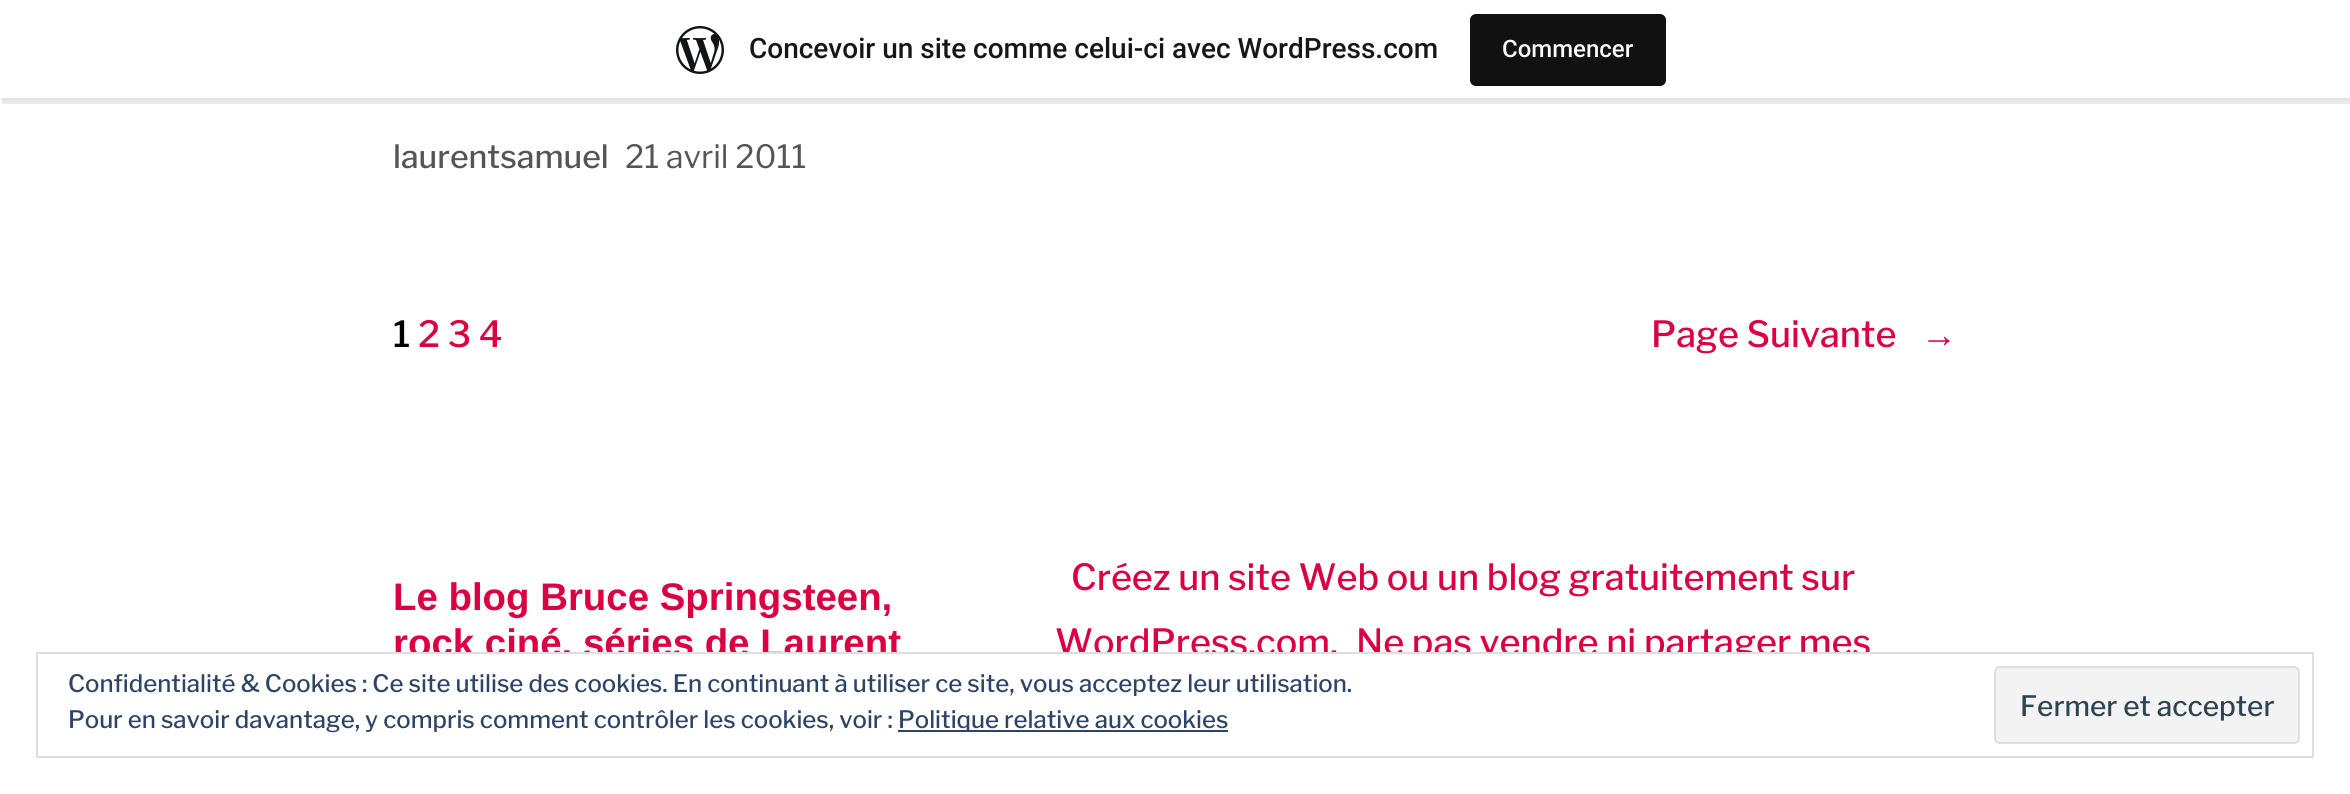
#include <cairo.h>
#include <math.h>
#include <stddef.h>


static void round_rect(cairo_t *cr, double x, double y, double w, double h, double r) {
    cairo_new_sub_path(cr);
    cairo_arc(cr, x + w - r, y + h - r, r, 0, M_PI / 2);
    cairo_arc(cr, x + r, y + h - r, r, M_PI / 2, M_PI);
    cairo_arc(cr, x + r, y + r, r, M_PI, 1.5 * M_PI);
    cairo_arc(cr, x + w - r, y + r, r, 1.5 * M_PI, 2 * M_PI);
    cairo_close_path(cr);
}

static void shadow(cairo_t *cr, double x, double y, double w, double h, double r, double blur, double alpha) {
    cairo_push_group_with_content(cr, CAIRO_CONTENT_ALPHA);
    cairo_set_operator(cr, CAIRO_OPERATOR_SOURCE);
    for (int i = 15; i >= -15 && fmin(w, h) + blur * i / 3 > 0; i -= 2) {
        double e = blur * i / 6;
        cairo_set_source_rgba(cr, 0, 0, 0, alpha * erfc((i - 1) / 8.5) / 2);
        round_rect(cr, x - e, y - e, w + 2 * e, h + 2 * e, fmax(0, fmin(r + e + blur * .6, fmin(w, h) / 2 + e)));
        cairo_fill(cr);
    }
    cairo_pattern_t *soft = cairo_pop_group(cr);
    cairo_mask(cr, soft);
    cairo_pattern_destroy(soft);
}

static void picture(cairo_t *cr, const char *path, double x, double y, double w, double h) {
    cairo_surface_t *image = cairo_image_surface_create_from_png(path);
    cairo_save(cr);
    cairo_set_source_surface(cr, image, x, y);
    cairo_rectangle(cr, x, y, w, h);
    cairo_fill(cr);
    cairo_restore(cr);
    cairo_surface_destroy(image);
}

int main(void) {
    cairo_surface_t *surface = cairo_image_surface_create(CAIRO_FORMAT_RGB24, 2350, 794);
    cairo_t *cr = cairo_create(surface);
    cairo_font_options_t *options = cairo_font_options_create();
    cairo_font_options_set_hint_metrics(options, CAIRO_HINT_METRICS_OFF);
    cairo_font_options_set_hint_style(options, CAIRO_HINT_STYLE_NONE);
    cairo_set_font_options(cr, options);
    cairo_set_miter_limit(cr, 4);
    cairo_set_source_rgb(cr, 1, 1, 1);
    cairo_paint(cr);
    cairo_set_source_rgb(cr, 0, 0, 0);
    shadow(cr, 0, 2, 2350, 98, 0, 2, 0.05);
    cairo_set_source_rgba(cr, 0, 0, 0, 0.08);
    cairo_new_path(cr);
    cairo_move_to(cr, 2, 98);
    cairo_line_to(cr, 2, 104);
    cairo_line_to(cr, 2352, 104);
    cairo_line_to(cr, 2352, 6);
    cairo_line_to(cr, 2350, 6);
    cairo_line_to(cr, 2350, 98);
    cairo_close_path(cr);
    cairo_fill(cr);
    cairo_set_source_rgb(cr, 1, 1, 1);
    cairo_rectangle(cr, 0, 0, 2350, 98);
    cairo_fill(cr);
    picture(cr, "img1.png", 676, 26, 48, 48);
    cairo_select_font_face(cr, "Roboto Medium", CAIRO_FONT_SLANT_NORMAL, CAIRO_FONT_WEIGHT_NORMAL);
    cairo_set_font_size(cr, 28);
    cairo_set_source_rgb(cr, 0.09, 0.09, 0.09);
    cairo_move_to(cr, 749, 58);
    cairo_show_text(cr, "Concevoir un site comme celui-ci avec WordPress.com");
    cairo_set_source_rgb(cr, 0.067, 0.067, 0.067);
    round_rect(cr, 1470, 14, 196, 72, 6);
    cairo_fill(cr);
    cairo_set_font_size(cr, 24);
    cairo_set_source_rgb(cr, 0.965, 0.969, 0.969);
    cairo_move_to(cr, 1502, 57);
    cairo_show_text(cr, "Commencer");
    cairo_select_font_face(cr, "Libre Franklin Medium", CAIRO_FONT_SLANT_NORMAL, CAIRO_FONT_WEIGHT_NORMAL);
    cairo_set_font_size(cr, 32);
    cairo_set_source_rgb(cr, 0.333, 0.333, 0.333);
    cairo_move_to(cr, 393, 168);
    cairo_show_text(cr, "laurentsamuel");
    cairo_select_font_face(cr, "Libre Franklin", CAIRO_FONT_SLANT_NORMAL, CAIRO_FONT_WEIGHT_NORMAL);
    cairo_move_to(cr, 625, 168);
    cairo_show_text(cr, "21 avril 2011");
    cairo_select_font_face(cr, "Libre Franklin Medium", CAIRO_FONT_SLANT_NORMAL, CAIRO_FONT_WEIGHT_NORMAL);
    cairo_set_font_size(cr, 36);
    cairo_set_source_rgb(cr, 0, 0, 0);
    cairo_move_to(cr, 393, 347);
    cairo_show_text(cr, "1");
    cairo_set_source_rgb(cr, 0.859, 0, 0.259);
    cairo_move_to(cr, 418, 347);
    cairo_show_text(cr, "2 3 4");
    cairo_move_to(cr, 1651, 347);
    cairo_show_text(cr, "Page Suivante");
    cairo_select_font_face(cr, "Liberation Sans", CAIRO_FONT_SLANT_NORMAL, CAIRO_FONT_WEIGHT_NORMAL);
    cairo_move_to(cr, 1921, 347);
    cairo_show_text(cr, "→");
    cairo_select_font_face(cr, "Liberation Sans", CAIRO_FONT_SLANT_NORMAL, CAIRO_FONT_WEIGHT_BOLD);
    cairo_set_font_size(cr, 38.4);
    cairo_move_to(cr, 393, 610);
    cairo_show_text(cr, "Le blog Bruce Springsteen,");
    cairo_move_to(cr, 393, 656);
    cairo_show_text(cr, "rock ciné, séries de Laurent");
    cairo_select_font_face(cr, "Libre Franklin Medium", CAIRO_FONT_SLANT_NORMAL, CAIRO_FONT_WEIGHT_NORMAL);
    cairo_set_font_size(cr, 36);
    cairo_move_to(cr, 1071, 590);
    cairo_show_text(cr, "Créez un site Web ou un blog gratuitement sur");
    cairo_move_to(cr, 1055, 655);
    cairo_show_text(cr, "WordPress.com.");
    cairo_move_to(cr, 1356, 655);
    cairo_show_text(cr, "Ne pas vendre ni partager mes");
    cairo_set_source_rgb(cr, 1, 1, 1);
    cairo_rectangle(cr, 395, 654, 1473, 8);
    cairo_fill(cr);
    cairo_rectangle(cr, 37, 653, 2276, 104);
    cairo_set_source_rgb(cr, 0.871, 0.871, 0.871);
    cairo_stroke(cr);
    cairo_set_font_size(cr, 24);
    cairo_set_source_rgb(cr, 0.18, 0.267, 0.404);
    cairo_move_to(cr, 68, 692);
    cairo_show_text(cr, "Confidentialité & Cookies : Ce site utilise des cookies. En continuant à utiliser ce site, vous acceptez leur utilisation.");
    cairo_move_to(cr, 68, 728);
    cairo_show_text(cr, "Pour en savoir davantage, y compris comment contrôler les cookies, voir :");
    cairo_rectangle(cr, 898, 730, 330, 2);
    cairo_fill(cr);
    cairo_move_to(cr, 898, 728);
    cairo_show_text(cr, "Politique relative aux cookies");
    cairo_set_source_rgb(cr, 0.953, 0.953, 0.953);
    round_rect(cr, 1995, 667, 304, 76, 5);
    cairo_fill_preserve(cr);
    cairo_set_source_rgb(cr, 0.871, 0.871, 0.871);
    cairo_stroke(cr);
    cairo_set_font_size(cr, 28);
    cairo_set_source_rgb(cr, 0.18, 0.267, 0.325);
    cairo_move_to(cr, 2020, 716);
    cairo_show_text(cr, "Fermer et accepter");
    cairo_surface_write_to_png(surface, "page.png");
    cairo_font_options_destroy(options);
    cairo_destroy(cr);
    cairo_surface_destroy(surface);
    return 0;
}
